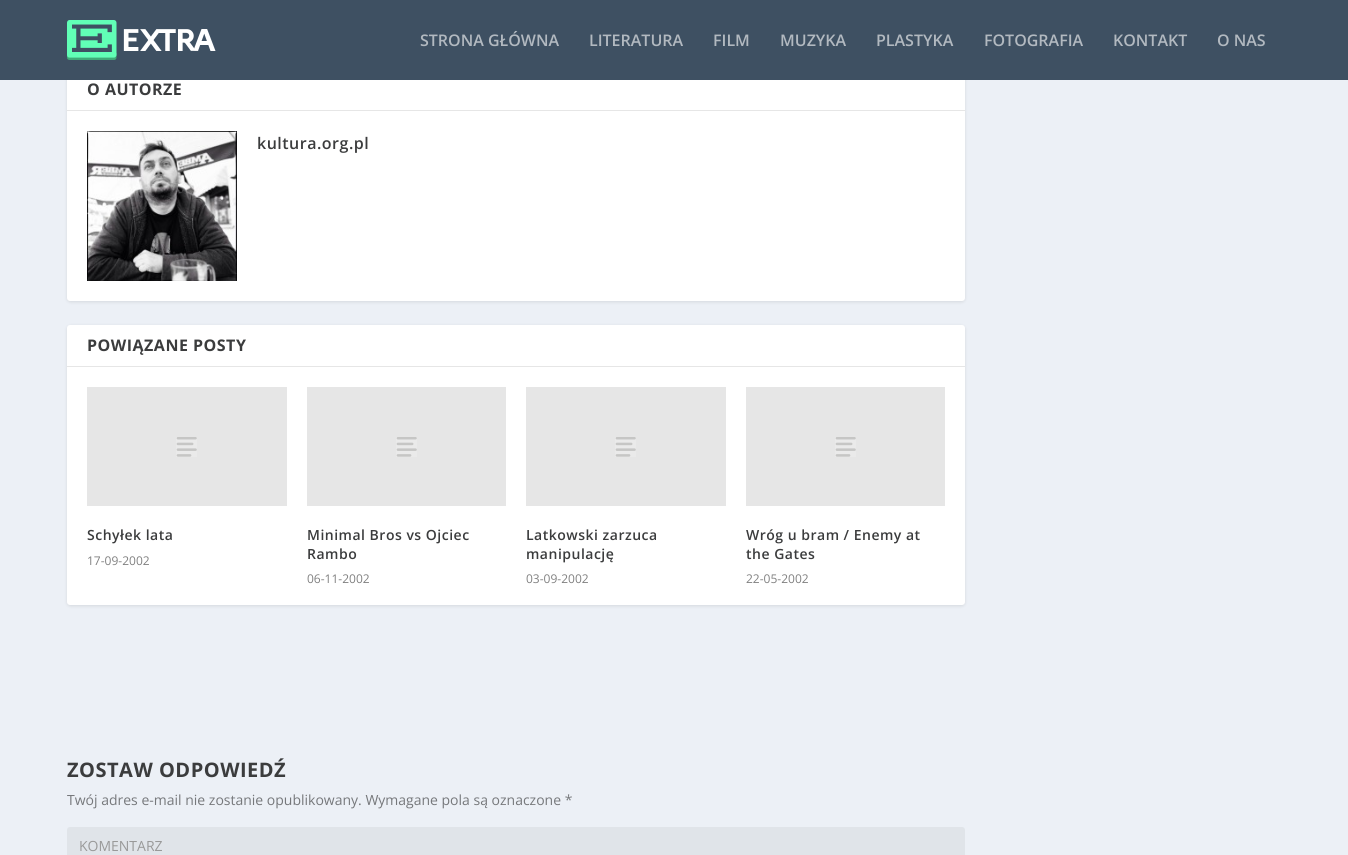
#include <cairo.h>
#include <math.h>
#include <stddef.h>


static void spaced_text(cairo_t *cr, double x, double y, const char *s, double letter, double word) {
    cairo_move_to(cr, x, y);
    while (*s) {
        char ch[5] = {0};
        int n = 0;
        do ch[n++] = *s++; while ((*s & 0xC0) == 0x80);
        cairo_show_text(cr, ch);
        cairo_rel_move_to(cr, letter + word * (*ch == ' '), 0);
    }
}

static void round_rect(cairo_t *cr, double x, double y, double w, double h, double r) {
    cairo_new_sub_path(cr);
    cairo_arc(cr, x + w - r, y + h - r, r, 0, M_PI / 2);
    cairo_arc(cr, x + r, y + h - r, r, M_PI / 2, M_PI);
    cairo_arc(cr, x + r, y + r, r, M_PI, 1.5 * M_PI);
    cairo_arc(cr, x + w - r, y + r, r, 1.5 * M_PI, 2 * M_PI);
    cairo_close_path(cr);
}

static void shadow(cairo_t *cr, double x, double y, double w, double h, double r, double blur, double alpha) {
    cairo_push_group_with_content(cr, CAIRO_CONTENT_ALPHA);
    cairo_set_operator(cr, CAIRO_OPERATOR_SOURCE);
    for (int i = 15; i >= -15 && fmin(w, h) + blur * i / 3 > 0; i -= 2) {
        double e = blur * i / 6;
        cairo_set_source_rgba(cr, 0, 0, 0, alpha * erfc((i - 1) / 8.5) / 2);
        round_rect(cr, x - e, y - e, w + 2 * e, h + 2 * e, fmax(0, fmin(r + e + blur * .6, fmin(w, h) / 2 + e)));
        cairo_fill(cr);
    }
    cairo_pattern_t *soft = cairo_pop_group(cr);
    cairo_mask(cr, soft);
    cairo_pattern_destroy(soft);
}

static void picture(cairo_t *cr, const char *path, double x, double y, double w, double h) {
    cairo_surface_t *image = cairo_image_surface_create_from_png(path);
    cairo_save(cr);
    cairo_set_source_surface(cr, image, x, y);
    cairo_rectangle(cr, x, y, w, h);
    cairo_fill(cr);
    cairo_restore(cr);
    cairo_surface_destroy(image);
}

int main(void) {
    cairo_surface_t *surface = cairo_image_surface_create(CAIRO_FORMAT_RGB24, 1348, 855);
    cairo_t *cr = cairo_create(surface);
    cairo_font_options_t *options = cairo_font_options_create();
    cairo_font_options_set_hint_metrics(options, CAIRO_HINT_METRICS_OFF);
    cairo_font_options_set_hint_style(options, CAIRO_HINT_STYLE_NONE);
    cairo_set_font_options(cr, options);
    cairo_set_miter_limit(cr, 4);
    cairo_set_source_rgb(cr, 0.925, 0.941, 0.961);
    cairo_paint(cr);
    cairo_set_source_rgb(cr, 0, 0, 0);
    shadow(cr, 67, 70, 898, 232, 3, 1.5, 0.1);
    cairo_set_source_rgb(cr, 1, 1, 1);
    round_rect(cr, 67, 69, 898, 232, 3);
    cairo_fill(cr);
    cairo_set_source_rgb(cr, 0.243, 0.314, 0.384);
    cairo_rectangle(cr, 0, 0, 1348, 80);
    cairo_fill(cr);
    picture(cr, "img1.png", 67, 20, 149, 40);
    cairo_select_font_face(cr, "Open Sans SemiBold", CAIRO_FONT_SLANT_NORMAL, CAIRO_FONT_WEIGHT_NORMAL);
    cairo_set_font_size(cr, 16);
    cairo_set_source_rgb(cr, 0.698, 0.725, 0.753);
    cairo_move_to(cr, 420, 46);
    cairo_show_text(cr, "STRONA GŁÓWNA");
    cairo_move_to(cr, 589, 46);
    cairo_show_text(cr, "LITERATURA");
    cairo_move_to(cr, 713, 46);
    cairo_show_text(cr, "FILM");
    cairo_move_to(cr, 780, 46);
    cairo_show_text(cr, "MUZYKA");
    cairo_move_to(cr, 876, 46);
    cairo_show_text(cr, "PLASTYKA");
    cairo_move_to(cr, 984, 46);
    cairo_show_text(cr, "FOTOGRAFIA");
    cairo_move_to(cr, 1113, 46);
    cairo_show_text(cr, "KONTAKT");
    cairo_move_to(cr, 1217, 46);
    cairo_show_text(cr, "O NAS");
    cairo_set_source_rgb(cr, 0.902, 0.902, 0.902);
    cairo_rectangle(cr, 67, 110, 898, 1);
    cairo_fill(cr);
    cairo_select_font_face(cr, "Open Sans", CAIRO_FONT_SLANT_NORMAL, CAIRO_FONT_WEIGHT_BOLD);
    cairo_set_source_rgb(cr, 0.231, 0.235, 0.239);
    spaced_text(cr, 87, 95, "O AUTORZE", 0.5, 0);
    picture(cr, "img2.png", 87, 131, 150, 150);
    cairo_select_font_face(cr, "Open Sans SemiBold", CAIRO_FONT_SLANT_NORMAL, CAIRO_FONT_WEIGHT_NORMAL);
    spaced_text(cr, 257, 149, "kultura.org.pl", 0.5, 0);
    cairo_set_source_rgb(cr, 0, 0, 0);
    shadow(cr, 67, 326, 898, 280, 3, 1.5, 0.1);
    cairo_set_source_rgb(cr, 1, 1, 1);
    round_rect(cr, 67, 325, 898, 280, 3);
    cairo_fill(cr);
    cairo_set_source_rgb(cr, 0.902, 0.902, 0.902);
    cairo_rectangle(cr, 67, 366, 898, 1);
    cairo_fill(cr);
    cairo_select_font_face(cr, "Open Sans", CAIRO_FONT_SLANT_NORMAL, CAIRO_FONT_WEIGHT_BOLD);
    cairo_set_source_rgb(cr, 0.231, 0.235, 0.239);
    spaced_text(cr, 87, 351, "POWIĄZANE POSTY", 0.5, 0);
    cairo_set_source_rgb(cr, 0.902, 0.902, 0.902);
    cairo_rectangle(cr, 87, 387, 200, 119);
    cairo_fill(cr);
    picture(cr, "img3.png", 176, 437, 21, 20);
    cairo_select_font_face(cr, "Open Sans SemiBold", CAIRO_FONT_SLANT_NORMAL, CAIRO_FONT_WEIGHT_NORMAL);
    cairo_set_font_size(cr, 14);
    cairo_set_source_rgb(cr, 0.231, 0.235, 0.239);
    spaced_text(cr, 87, 540, "Schyłek lata", 0.5, 0);
    cairo_select_font_face(cr, "Open Sans", CAIRO_FONT_SLANT_NORMAL, CAIRO_FONT_WEIGHT_NORMAL);
    cairo_set_font_size(cr, 12);
    cairo_set_source_rgb(cr, 0.502, 0.502, 0.502);
    cairo_move_to(cr, 87, 565);
    cairo_show_text(cr, "17-09-2002");
    cairo_set_source_rgb(cr, 0.902, 0.902, 0.902);
    cairo_rectangle(cr, 307, 387, 199, 119);
    cairo_fill(cr);
    picture(cr, "img3.png", 396, 437, 21, 20);
    cairo_select_font_face(cr, "Open Sans SemiBold", CAIRO_FONT_SLANT_NORMAL, CAIRO_FONT_WEIGHT_NORMAL);
    cairo_set_font_size(cr, 14);
    cairo_set_source_rgb(cr, 0.231, 0.235, 0.239);
    spaced_text(cr, 307, 540, "Minimal Bros vs Ojciec", 0.5, 0);
    spaced_text(cr, 307, 559, "Rambo", 0.5, 0);
    cairo_select_font_face(cr, "Open Sans", CAIRO_FONT_SLANT_NORMAL, CAIRO_FONT_WEIGHT_NORMAL);
    cairo_set_font_size(cr, 12);
    cairo_set_source_rgb(cr, 0.502, 0.502, 0.502);
    cairo_move_to(cr, 307, 583);
    cairo_show_text(cr, "06-11-2002");
    cairo_set_source_rgb(cr, 0.902, 0.902, 0.902);
    cairo_rectangle(cr, 526, 387, 200, 119);
    cairo_fill(cr);
    picture(cr, "img3.png", 615, 437, 21, 20);
    cairo_select_font_face(cr, "Open Sans SemiBold", CAIRO_FONT_SLANT_NORMAL, CAIRO_FONT_WEIGHT_NORMAL);
    cairo_set_font_size(cr, 14);
    cairo_set_source_rgb(cr, 0.231, 0.235, 0.239);
    spaced_text(cr, 526, 540, "Latkowski zarzuca", 0.5, 0);
    spaced_text(cr, 526, 559, "manipulację", 0.5, 0);
    cairo_select_font_face(cr, "Open Sans", CAIRO_FONT_SLANT_NORMAL, CAIRO_FONT_WEIGHT_NORMAL);
    cairo_set_font_size(cr, 12);
    cairo_set_source_rgb(cr, 0.502, 0.502, 0.502);
    cairo_move_to(cr, 526, 583);
    cairo_show_text(cr, "03-09-2002");
    cairo_set_source_rgb(cr, 0.902, 0.902, 0.902);
    cairo_rectangle(cr, 746, 387, 199, 119);
    cairo_fill(cr);
    picture(cr, "img3.png", 835, 437, 21, 20);
    cairo_select_font_face(cr, "Open Sans SemiBold", CAIRO_FONT_SLANT_NORMAL, CAIRO_FONT_WEIGHT_NORMAL);
    cairo_set_font_size(cr, 14);
    cairo_set_source_rgb(cr, 0.231, 0.235, 0.239);
    spaced_text(cr, 746, 540, "Wróg u bram / Enemy at", 0.5, 0);
    spaced_text(cr, 746, 559, "the Gates", 0.5, 0);
    cairo_select_font_face(cr, "Open Sans", CAIRO_FONT_SLANT_NORMAL, CAIRO_FONT_WEIGHT_NORMAL);
    cairo_set_font_size(cr, 12);
    cairo_set_source_rgb(cr, 0.502, 0.502, 0.502);
    cairo_move_to(cr, 746, 583);
    cairo_show_text(cr, "22-05-2002");
    cairo_select_font_face(cr, "Open Sans", CAIRO_FONT_SLANT_NORMAL, CAIRO_FONT_WEIGHT_BOLD);
    cairo_set_font_size(cr, 20);
    cairo_set_source_rgb(cr, 0.231, 0.235, 0.239);
    spaced_text(cr, 67, 777, "ZOSTAW ODPOWIEDŹ", 0.5, 0);
    cairo_select_font_face(cr, "Open Sans", CAIRO_FONT_SLANT_NORMAL, CAIRO_FONT_WEIGHT_NORMAL);
    cairo_set_font_size(cr, 14);
    cairo_set_source_rgb(cr, 0.463, 0.471, 0.482);
    cairo_move_to(cr, 67, 805);
    cairo_show_text(cr, "Twój adres e-mail nie zostanie opublikowany. Wymagane pola są oznaczone *");
    cairo_set_source_rgb(cr, 0.878, 0.894, 0.914);
    round_rect(cr, 67, 827, 898, 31, 3);
    cairo_fill(cr);
    cairo_set_source_rgb(cr, 0.6, 0.6, 0.6);
    cairo_move_to(cr, 79, 851);
    cairo_show_text(cr, "KOMENTARZ");
    cairo_surface_write_to_png(surface, "page.png");
    cairo_font_options_destroy(options);
    cairo_destroy(cr);
    cairo_surface_destroy(surface);
    return 0;
}
